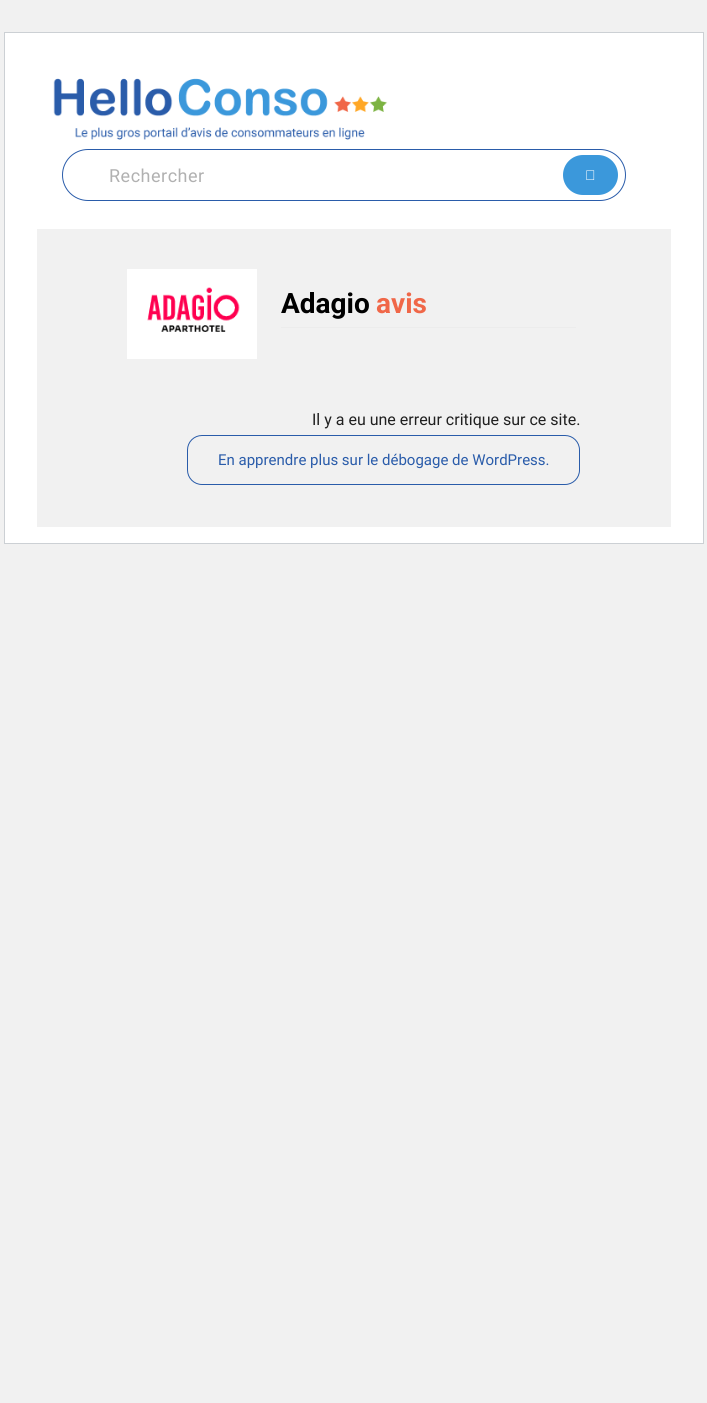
#include <cairo.h>
#include <math.h>
#include <stddef.h>


static void spaced_text(cairo_t *cr, double x, double y, const char *s, double letter, double word) {
    cairo_move_to(cr, x, y);
    while (*s) {
        char ch[5] = {0};
        int n = 0;
        do ch[n++] = *s++; while ((*s & 0xC0) == 0x80);
        cairo_show_text(cr, ch);
        cairo_rel_move_to(cr, letter + word * (*ch == ' '), 0);
    }
}

static void round_rect(cairo_t *cr, double x, double y, double w, double h, double r) {
    cairo_new_sub_path(cr);
    cairo_arc(cr, x + w - r, y + h - r, r, 0, M_PI / 2);
    cairo_arc(cr, x + r, y + h - r, r, M_PI / 2, M_PI);
    cairo_arc(cr, x + r, y + r, r, M_PI, 1.5 * M_PI);
    cairo_arc(cr, x + w - r, y + r, r, 1.5 * M_PI, 2 * M_PI);
    cairo_close_path(cr);
}

static void picture(cairo_t *cr, const char *path, double x, double y, double w, double h) {
    cairo_surface_t *image = cairo_image_surface_create_from_png(path);
    cairo_save(cr);
    cairo_set_source_surface(cr, image, x, y);
    cairo_rectangle(cr, x, y, w, h);
    cairo_fill(cr);
    cairo_restore(cr);
    cairo_surface_destroy(image);
}

int main(void) {
    cairo_surface_t *surface = cairo_image_surface_create(CAIRO_FORMAT_RGB24, 707, 1403);
    cairo_t *cr = cairo_create(surface);
    cairo_font_options_t *options = cairo_font_options_create();
    cairo_font_options_set_hint_metrics(options, CAIRO_HINT_METRICS_OFF);
    cairo_font_options_set_hint_style(options, CAIRO_HINT_STYLE_NONE);
    cairo_set_font_options(cr, options);
    cairo_set_miter_limit(cr, 4);
    cairo_set_source_rgb(cr, 0.945, 0.945, 0.945);
    cairo_paint(cr);
    cairo_set_source_rgb(cr, 1, 1, 1);
    cairo_rectangle(cr, 4.5, 32.5, 699, 511);
    cairo_fill_preserve(cr);
    cairo_set_source_rgb(cr, 0.8, 0.816, 0.831);
    cairo_set_line_width(cr, 1);
    cairo_stroke(cr);
    picture(cr, "img1.png", 53, 78, 335, 62);
    round_rect(cr, 62.5, 149.5, 563, 51, 25.5);
    cairo_set_source_rgb(cr, 0.165, 0.361, 0.667);
    cairo_stroke(cr);
    cairo_select_font_face(cr, "Roboto", CAIRO_FONT_SLANT_NORMAL, CAIRO_FONT_WEIGHT_NORMAL);
    cairo_set_font_size(cr, 18);
    cairo_set_source_rgb(cr, 0.694, 0.694, 0.694);
    spaced_text(cr, 109, 182, "Rechercher", 0.5, 0);
    cairo_set_source_rgb(cr, 0.231, 0.596, 0.859);
    round_rect(cr, 563, 155, 55, 40, 20);
    cairo_fill(cr);
    picture(cr, "img2.png", 586, 170, 9, 10);
    cairo_set_source_rgb(cr, 0.945, 0.945, 0.945);
    cairo_rectangle(cr, 37, 229, 634, 298);
    cairo_fill(cr);
    cairo_set_source_rgb(cr, 1, 1, 1);
    cairo_rectangle(cr, 127, 269, 130, 90);
    cairo_fill(cr);
    picture(cr, "img3.png", 147, 287, 93, 45);
    cairo_set_source_rgb(cr, 0.922, 0.922, 0.922);
    cairo_rectangle(cr, 281, 327, 295, 1);
    cairo_fill(cr);
    cairo_select_font_face(cr, "Roboto", CAIRO_FONT_SLANT_NORMAL, CAIRO_FONT_WEIGHT_BOLD);
    cairo_set_font_size(cr, 28);
    cairo_set_source_rgb(cr, 0, 0, 0);
    cairo_move_to(cr, 281, 313);
    cairo_show_text(cr, "Adagio");
    cairo_set_source_rgb(cr, 0.941, 0.404, 0.282);
    cairo_move_to(cr, 376, 313);
    cairo_show_text(cr, "avis");
    cairo_select_font_face(cr, "Roboto", CAIRO_FONT_SLANT_NORMAL, CAIRO_FONT_WEIGHT_NORMAL);
    cairo_set_font_size(cr, 16);
    cairo_set_source_rgb(cr, 0.125, 0.125, 0.125);
    cairo_move_to(cr, 312, 425);
    cairo_show_text(cr, "Il y a eu une erreur critique sur ce site.");
    round_rect(cr, 187.5, 435.5, 392, 49, 14.5);
    cairo_set_source_rgb(cr, 0.165, 0.361, 0.667);
    cairo_stroke(cr);
    cairo_set_font_size(cr, 15);
    cairo_move_to(cr, 218, 465);
    cairo_show_text(cr, "En apprendre plus sur le débogage de WordPress.");
    cairo_surface_write_to_png(surface, "page.png");
    cairo_font_options_destroy(options);
    cairo_destroy(cr);
    cairo_surface_destroy(surface);
    return 0;
}
